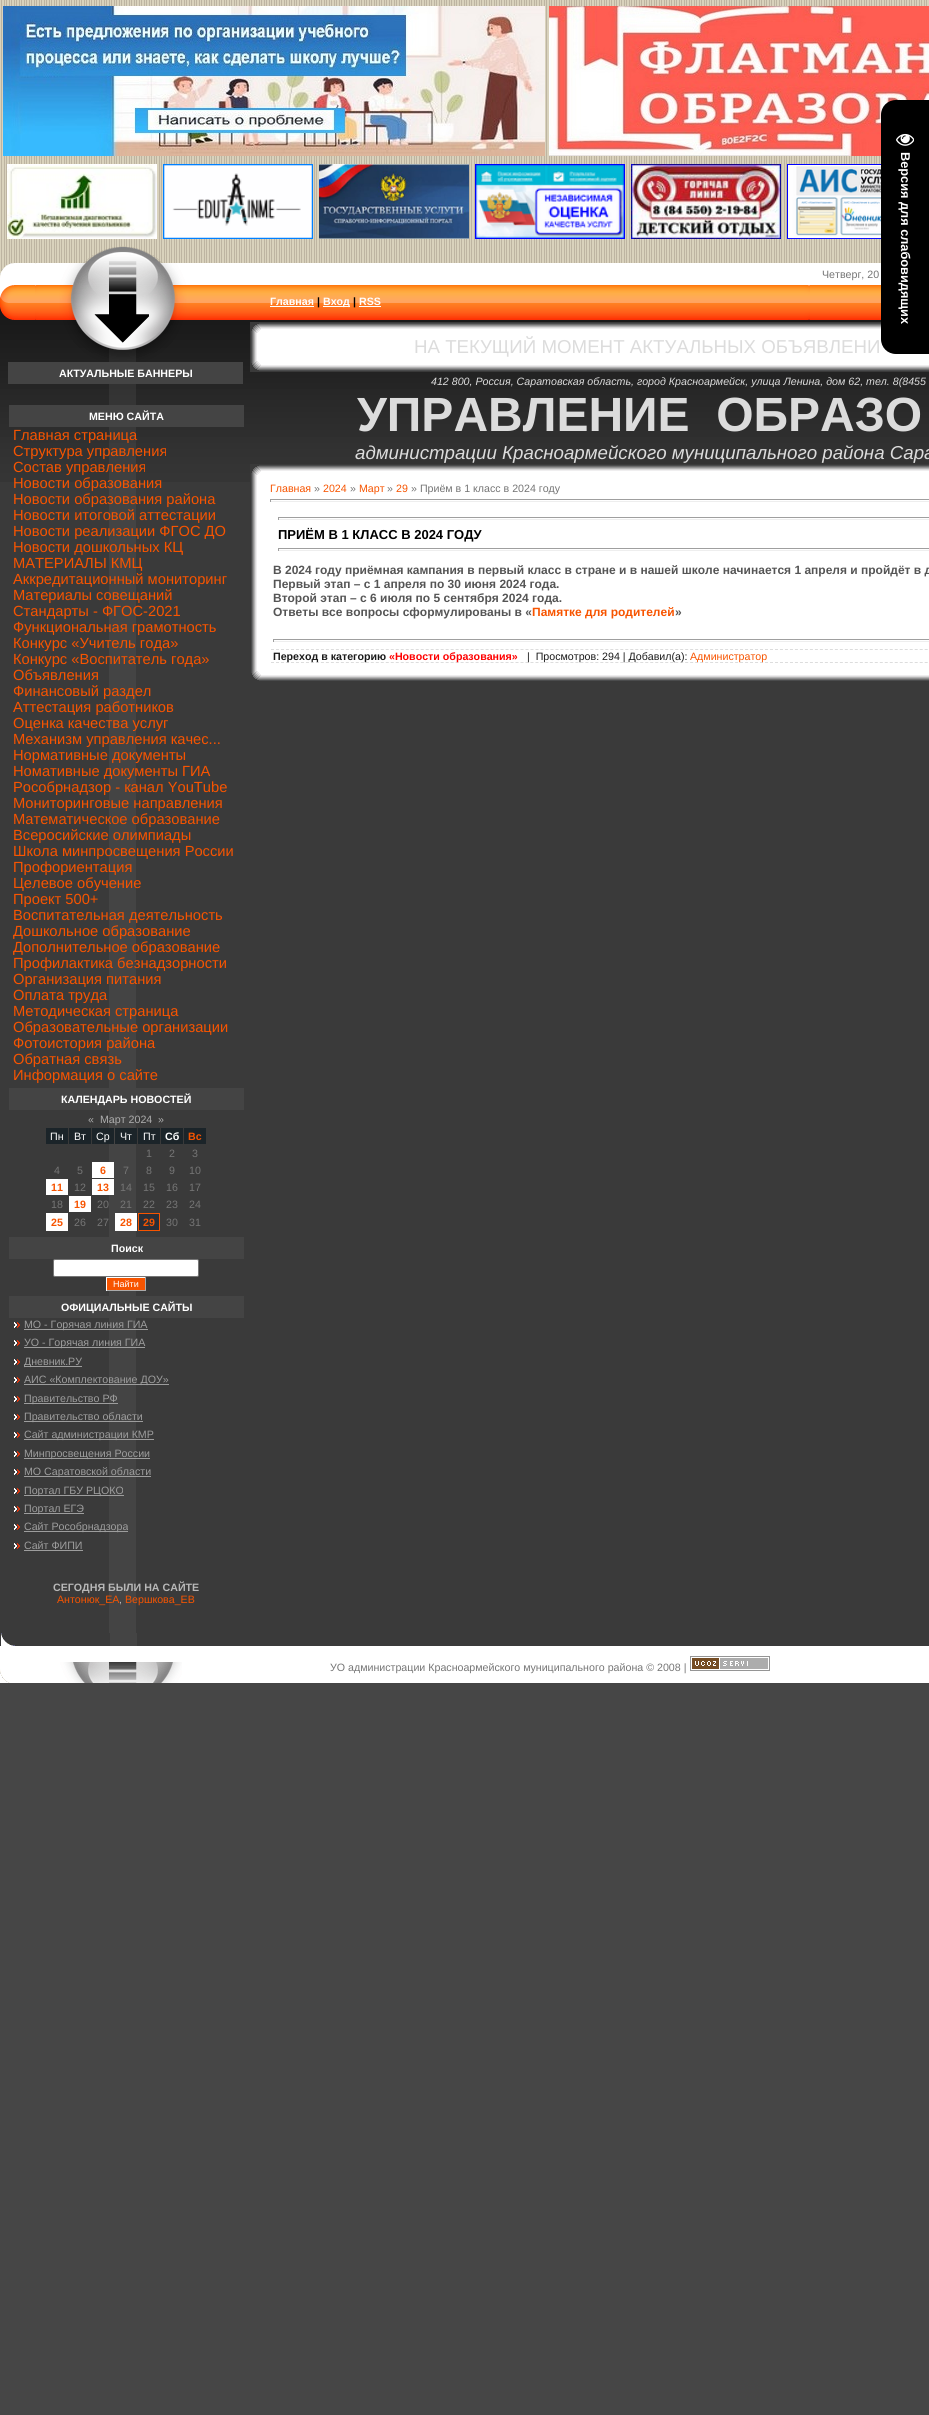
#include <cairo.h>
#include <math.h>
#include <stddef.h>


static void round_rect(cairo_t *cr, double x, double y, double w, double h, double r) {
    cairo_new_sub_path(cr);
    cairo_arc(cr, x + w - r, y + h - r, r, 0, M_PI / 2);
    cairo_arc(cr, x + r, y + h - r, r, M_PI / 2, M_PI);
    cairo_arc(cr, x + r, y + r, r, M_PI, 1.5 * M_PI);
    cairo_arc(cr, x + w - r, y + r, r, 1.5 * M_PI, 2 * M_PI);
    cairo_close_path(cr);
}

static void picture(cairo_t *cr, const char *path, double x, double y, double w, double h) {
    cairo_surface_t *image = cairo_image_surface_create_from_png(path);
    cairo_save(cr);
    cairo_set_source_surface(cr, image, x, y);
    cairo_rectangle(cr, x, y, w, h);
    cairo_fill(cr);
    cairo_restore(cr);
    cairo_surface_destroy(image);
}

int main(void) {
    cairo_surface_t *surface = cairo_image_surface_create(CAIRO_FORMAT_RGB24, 929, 2415);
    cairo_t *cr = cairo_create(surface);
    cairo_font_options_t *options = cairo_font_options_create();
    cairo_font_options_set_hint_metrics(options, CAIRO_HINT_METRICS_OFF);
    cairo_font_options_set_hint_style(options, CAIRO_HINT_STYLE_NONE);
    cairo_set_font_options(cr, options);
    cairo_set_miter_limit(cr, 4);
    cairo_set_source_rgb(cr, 0.275, 0.275, 0.275);
    cairo_paint(cr);
    picture(cr, "img2.png", 0, 0, 929, 159);
    picture(cr, "img4.png", 549, 6, 380, 150);
    picture(cr, "img14.png", 0, 285, 929, 197);
    cairo_set_source_rgb(cr, 1, 1, 1);
    cairo_rectangle(cr, 257, 333, 672, 28);
    cairo_fill(cr);
    cairo_set_source_rgb(cr, 0, 0, 0);
    cairo_new_path(cr);
    cairo_move_to(cr, 896, 100);
    cairo_line_to(cr, 929, 100);
    cairo_line_to(cr, 929, 354);
    cairo_line_to(cr, 896, 354);
    cairo_curve_to(cr, 887.5, 354, 881, 347.5, 881, 339);
    cairo_line_to(cr, 881, 115);
    cairo_curve_to(cr, 881, 106.5, 887.5, 100, 896, 100);
    cairo_close_path(cr);
    cairo_fill(cr);
    picture(cr, "img1.png", 896, 133, 18, 13);
    cairo_select_font_face(cr, "Liberation Sans", CAIRO_FONT_SLANT_NORMAL, CAIRO_FONT_WEIGHT_BOLD);
    cairo_set_font_size(cr, 12.75);
    cairo_set_source_rgb(cr, 1, 1, 1);
    cairo_save(cr);
    cairo_translate(cr, 901, 152);
    cairo_rotate(cr, 90 * M_PI / 180);
    cairo_move_to(cr, 0, 0);
    cairo_show_text(cr, "Версия для слабовидящих");
    cairo_restore(cr);
    picture(cr, "img3.png", 3, 6, 542, 150);
    picture(cr, "img5.png", 0, 159, 881, 114);
    picture(cr, "img6.png", 7, 164, 150, 75);
    picture(cr, "img7.png", 163, 164, 150, 75);
    picture(cr, "img8.png", 319, 164, 150, 75);
    picture(cr, "img9.png", 475, 164, 150, 75);
    picture(cr, "img10.png", 631, 164, 150, 75);
    picture(cr, "img11.png", 787, 164, 94, 75);
    picture(cr, "img12.png", 0, 246, 881, 39);
    cairo_select_font_face(cr, "Liberation Sans", CAIRO_FONT_SLANT_NORMAL, CAIRO_FONT_WEIGHT_NORMAL);
    cairo_set_font_size(cr, 10.65);
    cairo_set_source_rgb(cr, 0.459, 0.459, 0.459);
    cairo_move_to(cr, 822, 278);
    cairo_show_text(cr, "Четверг, 20");
    picture(cr, "img13.png", 0, 482, 929, 1164);
    cairo_select_font_face(cr, "Liberation Sans", CAIRO_FONT_SLANT_NORMAL, CAIRO_FONT_WEIGHT_BOLD);
    cairo_set_source_rgb(cr, 1, 1, 1);
    cairo_move_to(cr, 270, 305);
    cairo_show_text(cr, "Главная");
    cairo_rectangle(cr, 270, 306, 44, 1);
    cairo_fill(cr);
    cairo_set_source_rgb(cr, 0, 0, 0);
    cairo_move_to(cr, 317, 305);
    cairo_show_text(cr, "|");
    cairo_set_source_rgb(cr, 1, 1, 1);
    cairo_rectangle(cr, 323, 306, 27, 1);
    cairo_fill(cr);
    cairo_move_to(cr, 323, 305);
    cairo_show_text(cr, "Вход");
    cairo_set_source_rgb(cr, 0, 0, 0);
    cairo_move_to(cr, 353, 305);
    cairo_show_text(cr, "|");
    cairo_set_source_rgb(cr, 1, 1, 1);
    cairo_move_to(cr, 359, 305);
    cairo_show_text(cr, "RSS");
    cairo_rectangle(cr, 359, 306, 22, 1);
    cairo_fill(cr);
    picture(cr, "img15.png", 250, 322, 7, 50);
    picture(cr, "img16.png", 251, 322, 630, 11);
    picture(cr, "img17.png", 251, 361, 678, 11);
    cairo_select_font_face(cr, "Liberation Sans", CAIRO_FONT_SLANT_NORMAL, CAIRO_FONT_WEIGHT_NORMAL);
    cairo_set_font_size(cr, 18.7);
    cairo_set_source_rgb(cr, 0.863, 0.863, 0.863);
    cairo_move_to(cr, 414, 353);
    cairo_show_text(cr, "НА ТЕКУЩИЙ МОМЕНТ АКТУАЛЬНЫХ ОБЪЯВЛЕНИ");
    cairo_set_source_rgb(cr, 0.267, 0.267, 0.267);
    cairo_rectangle(cr, 8, 362, 235, 22);
    cairo_fill(cr);
    cairo_select_font_face(cr, "Liberation Sans", CAIRO_FONT_SLANT_NORMAL, CAIRO_FONT_WEIGHT_BOLD);
    cairo_set_font_size(cr, 10.65);
    cairo_set_source_rgb(cr, 1, 1, 1);
    cairo_move_to(cr, 59, 377);
    cairo_show_text(cr, "АКТУАЛЬНЫЕ БАННЕРЫ");
    cairo_set_source_rgb(cr, 0.267, 0.267, 0.267);
    cairo_rectangle(cr, 9, 405, 235, 22);
    cairo_fill(cr);
    cairo_set_source_rgb(cr, 1, 1, 1);
    cairo_move_to(cr, 89, 420);
    cairo_show_text(cr, "МЕНЮ САЙТА");
    cairo_select_font_face(cr, "Liberation Sans", CAIRO_FONT_SLANT_NORMAL, CAIRO_FONT_WEIGHT_NORMAL);
    cairo_set_font_size(cr, 14.7);
    cairo_set_source_rgb(cr, 0.965, 0.329, 0);
    cairo_move_to(cr, 13, 440);
    cairo_show_text(cr, "Главная страница");
    cairo_move_to(cr, 13, 456);
    cairo_show_text(cr, "Структура управления");
    cairo_move_to(cr, 13, 472);
    cairo_show_text(cr, "Состав управления");
    cairo_move_to(cr, 13, 488);
    cairo_show_text(cr, "Новости образования");
    cairo_move_to(cr, 13, 504);
    cairo_show_text(cr, "Новости образования района");
    cairo_move_to(cr, 13, 520);
    cairo_show_text(cr, "Новости итоговой аттестации");
    cairo_move_to(cr, 13, 536);
    cairo_show_text(cr, "Новости реализации ФГОС ДО");
    cairo_move_to(cr, 13, 552);
    cairo_show_text(cr, "Новости дошкольных КЦ");
    cairo_move_to(cr, 13, 568);
    cairo_show_text(cr, "МАТЕРИАЛЫ КМЦ");
    cairo_move_to(cr, 13, 584);
    cairo_show_text(cr, "Аккредитационный мониторинг");
    cairo_move_to(cr, 13, 600);
    cairo_show_text(cr, "Материалы совещаний");
    cairo_move_to(cr, 13, 616);
    cairo_show_text(cr, "Стандарты - ФГОС-2021");
    cairo_move_to(cr, 13, 632);
    cairo_show_text(cr, "Функциональная грамотность");
    cairo_move_to(cr, 13, 648);
    cairo_show_text(cr, "Конкурс «Учитель года»");
    cairo_move_to(cr, 13, 664);
    cairo_show_text(cr, "Конкурс «Воспитатель года»");
    cairo_move_to(cr, 13, 680);
    cairo_show_text(cr, "Объявления");
    cairo_move_to(cr, 13, 696);
    cairo_show_text(cr, "Финансовый раздел");
    cairo_move_to(cr, 13, 712);
    cairo_show_text(cr, "Аттестация работников");
    cairo_move_to(cr, 13, 728);
    cairo_show_text(cr, "Оценка качества услуг");
    cairo_move_to(cr, 13, 744);
    cairo_show_text(cr, "Механизм управления качес...");
    cairo_move_to(cr, 13, 760);
    cairo_show_text(cr, "Нормативные документы");
    cairo_move_to(cr, 13, 776);
    cairo_show_text(cr, "Номативные документы ГИА");
    cairo_move_to(cr, 13, 792);
    cairo_show_text(cr, "Рособрнадзор - канал YouTube");
    cairo_move_to(cr, 13, 808);
    cairo_show_text(cr, "Мониторинговые направления");
    cairo_move_to(cr, 13, 824);
    cairo_show_text(cr, "Математическое образование");
    cairo_move_to(cr, 13, 840);
    cairo_show_text(cr, "Всеросийские олимпиады");
    cairo_move_to(cr, 13, 856);
    cairo_show_text(cr, "Школа минпросвещения России");
    cairo_move_to(cr, 13, 872);
    cairo_show_text(cr, "Профориентация");
    cairo_move_to(cr, 13, 888);
    cairo_show_text(cr, "Целевое обучение");
    cairo_move_to(cr, 13, 904);
    cairo_show_text(cr, "Проект 500+");
    cairo_move_to(cr, 13, 920);
    cairo_show_text(cr, "Воспитательная деятельность");
    cairo_move_to(cr, 13, 936);
    cairo_show_text(cr, "Дошкольное образование");
    cairo_move_to(cr, 13, 952);
    cairo_show_text(cr, "Дополнительное образование");
    cairo_move_to(cr, 13, 968);
    cairo_show_text(cr, "Профилактика безнадзорности");
    cairo_move_to(cr, 13, 984);
    cairo_show_text(cr, "Организация питания");
    cairo_move_to(cr, 13, 1000);
    cairo_show_text(cr, "Оплата труда");
    cairo_move_to(cr, 13, 1016);
    cairo_show_text(cr, "Методическая страница");
    cairo_move_to(cr, 13, 1032);
    cairo_show_text(cr, "Образовательные организации");
    cairo_move_to(cr, 13, 1048);
    cairo_show_text(cr, "Фотоистория района");
    cairo_move_to(cr, 13, 1064);
    cairo_show_text(cr, "Обратная связь");
    cairo_move_to(cr, 13, 1080);
    cairo_show_text(cr, "Информация о сайте");
    cairo_set_source_rgb(cr, 0.267, 0.267, 0.267);
    cairo_rectangle(cr, 9, 1088, 235, 22);
    cairo_fill(cr);
    cairo_select_font_face(cr, "Liberation Sans", CAIRO_FONT_SLANT_NORMAL, CAIRO_FONT_WEIGHT_BOLD);
    cairo_set_font_size(cr, 10.65);
    cairo_set_source_rgb(cr, 1, 1, 1);
    cairo_move_to(cr, 61, 1103);
    cairo_show_text(cr, "КАЛЕНДАРЬ НОВОСТЕЙ");
    cairo_select_font_face(cr, "Liberation Sans", CAIRO_FONT_SLANT_NORMAL, CAIRO_FONT_WEIGHT_NORMAL);
    cairo_set_source_rgb(cr, 0.678, 0.678, 0.678);
    cairo_move_to(cr, 88, 1123);
    cairo_show_text(cr, "«");
    cairo_move_to(cr, 100, 1123);
    cairo_show_text(cr, "Март 2024");
    cairo_move_to(cr, 158, 1123);
    cairo_show_text(cr, "»");
    cairo_set_source_rgb(cr, 0.106, 0.141, 0.161);
    cairo_rectangle(cr, 46, 1128, 22, 16);
    cairo_fill(cr);
    cairo_set_source_rgb(cr, 1, 1, 1);
    cairo_move_to(cr, 50, 1140);
    cairo_show_text(cr, "Пн");
    cairo_set_source_rgb(cr, 0.106, 0.141, 0.161);
    cairo_rectangle(cr, 69, 1128, 22, 16);
    cairo_fill(cr);
    cairo_set_source_rgb(cr, 1, 1, 1);
    cairo_move_to(cr, 74, 1140);
    cairo_show_text(cr, "Вт");
    cairo_set_source_rgb(cr, 0.106, 0.141, 0.161);
    cairo_rectangle(cr, 92, 1128, 22, 16);
    cairo_fill(cr);
    cairo_set_source_rgb(cr, 1, 1, 1);
    cairo_move_to(cr, 96, 1140);
    cairo_show_text(cr, "Ср");
    cairo_set_source_rgb(cr, 0.106, 0.141, 0.161);
    cairo_rectangle(cr, 115, 1128, 22, 16);
    cairo_fill(cr);
    cairo_set_source_rgb(cr, 1, 1, 1);
    cairo_move_to(cr, 120, 1140);
    cairo_show_text(cr, "Чт");
    cairo_set_source_rgb(cr, 0.106, 0.141, 0.161);
    cairo_rectangle(cr, 138, 1128, 22, 16);
    cairo_fill(cr);
    cairo_set_source_rgb(cr, 1, 1, 1);
    cairo_move_to(cr, 143, 1140);
    cairo_show_text(cr, "Пт");
    cairo_set_source_rgb(cr, 0.106, 0.141, 0.161);
    cairo_rectangle(cr, 161, 1128, 22, 16);
    cairo_fill(cr);
    cairo_select_font_face(cr, "Liberation Sans", CAIRO_FONT_SLANT_NORMAL, CAIRO_FONT_WEIGHT_BOLD);
    cairo_set_source_rgb(cr, 1, 1, 1);
    cairo_move_to(cr, 165, 1140);
    cairo_show_text(cr, "Сб");
    cairo_set_source_rgb(cr, 0.106, 0.141, 0.161);
    cairo_rectangle(cr, 184, 1128, 22, 16);
    cairo_fill(cr);
    cairo_set_source_rgb(cr, 0.965, 0.329, 0);
    cairo_move_to(cr, 188, 1140);
    cairo_show_text(cr, "Вс");
    cairo_select_font_face(cr, "Liberation Sans", CAIRO_FONT_SLANT_NORMAL, CAIRO_FONT_WEIGHT_NORMAL);
    cairo_set_source_rgb(cr, 0.459, 0.459, 0.459);
    cairo_move_to(cr, 146, 1157);
    cairo_show_text(cr, "1");
    cairo_move_to(cr, 169, 1157);
    cairo_show_text(cr, "2");
    cairo_move_to(cr, 192, 1157);
    cairo_show_text(cr, "3");
    cairo_move_to(cr, 54, 1174);
    cairo_show_text(cr, "4");
    cairo_move_to(cr, 77, 1174);
    cairo_show_text(cr, "5");
    cairo_set_source_rgb(cr, 1, 1, 1);
    cairo_rectangle(cr, 92, 1162, 22, 16);
    cairo_fill(cr);
    cairo_select_font_face(cr, "Liberation Sans", CAIRO_FONT_SLANT_NORMAL, CAIRO_FONT_WEIGHT_BOLD);
    cairo_set_source_rgb(cr, 0.965, 0.329, 0);
    cairo_move_to(cr, 100, 1174);
    cairo_show_text(cr, "6");
    cairo_select_font_face(cr, "Liberation Sans", CAIRO_FONT_SLANT_NORMAL, CAIRO_FONT_WEIGHT_NORMAL);
    cairo_set_source_rgb(cr, 0.459, 0.459, 0.459);
    cairo_move_to(cr, 123, 1174);
    cairo_show_text(cr, "7");
    cairo_move_to(cr, 146, 1174);
    cairo_show_text(cr, "8");
    cairo_move_to(cr, 169, 1174);
    cairo_show_text(cr, "9");
    cairo_move_to(cr, 189, 1174);
    cairo_show_text(cr, "10");
    cairo_set_source_rgb(cr, 1, 1, 1);
    cairo_rectangle(cr, 46, 1179, 22, 16);
    cairo_fill(cr);
    cairo_select_font_face(cr, "Liberation Sans", CAIRO_FONT_SLANT_NORMAL, CAIRO_FONT_WEIGHT_BOLD);
    cairo_set_source_rgb(cr, 0.965, 0.329, 0);
    cairo_move_to(cr, 51, 1191);
    cairo_show_text(cr, "11");
    cairo_select_font_face(cr, "Liberation Sans", CAIRO_FONT_SLANT_NORMAL, CAIRO_FONT_WEIGHT_NORMAL);
    cairo_set_source_rgb(cr, 0.459, 0.459, 0.459);
    cairo_move_to(cr, 74, 1191);
    cairo_show_text(cr, "12");
    cairo_set_source_rgb(cr, 1, 1, 1);
    cairo_rectangle(cr, 92, 1179, 22, 16);
    cairo_fill(cr);
    cairo_select_font_face(cr, "Liberation Sans", CAIRO_FONT_SLANT_NORMAL, CAIRO_FONT_WEIGHT_BOLD);
    cairo_set_source_rgb(cr, 0.965, 0.329, 0);
    cairo_move_to(cr, 97, 1191);
    cairo_show_text(cr, "13");
    cairo_select_font_face(cr, "Liberation Sans", CAIRO_FONT_SLANT_NORMAL, CAIRO_FONT_WEIGHT_NORMAL);
    cairo_set_source_rgb(cr, 0.459, 0.459, 0.459);
    cairo_move_to(cr, 120, 1191);
    cairo_show_text(cr, "14");
    cairo_move_to(cr, 143, 1191);
    cairo_show_text(cr, "15");
    cairo_move_to(cr, 166, 1191);
    cairo_show_text(cr, "16");
    cairo_move_to(cr, 189, 1191);
    cairo_show_text(cr, "17");
    cairo_move_to(cr, 51, 1208);
    cairo_show_text(cr, "18");
    cairo_set_source_rgb(cr, 1, 1, 1);
    cairo_rectangle(cr, 69, 1196, 22, 16);
    cairo_fill(cr);
    cairo_select_font_face(cr, "Liberation Sans", CAIRO_FONT_SLANT_NORMAL, CAIRO_FONT_WEIGHT_BOLD);
    cairo_set_source_rgb(cr, 0.965, 0.329, 0);
    cairo_move_to(cr, 74, 1208);
    cairo_show_text(cr, "19");
    cairo_select_font_face(cr, "Liberation Sans", CAIRO_FONT_SLANT_NORMAL, CAIRO_FONT_WEIGHT_NORMAL);
    cairo_set_source_rgb(cr, 0.459, 0.459, 0.459);
    cairo_move_to(cr, 97, 1208);
    cairo_show_text(cr, "20");
    cairo_move_to(cr, 120, 1208);
    cairo_show_text(cr, "21");
    cairo_move_to(cr, 143, 1208);
    cairo_show_text(cr, "22");
    cairo_move_to(cr, 166, 1208);
    cairo_show_text(cr, "23");
    cairo_move_to(cr, 189, 1208);
    cairo_show_text(cr, "24");
    cairo_set_source_rgb(cr, 1, 1, 1);
    cairo_rectangle(cr, 46, 1213, 22, 18);
    cairo_fill(cr);
    cairo_select_font_face(cr, "Liberation Sans", CAIRO_FONT_SLANT_NORMAL, CAIRO_FONT_WEIGHT_BOLD);
    cairo_set_source_rgb(cr, 0.965, 0.329, 0);
    cairo_move_to(cr, 51, 1226);
    cairo_show_text(cr, "25");
    cairo_select_font_face(cr, "Liberation Sans", CAIRO_FONT_SLANT_NORMAL, CAIRO_FONT_WEIGHT_NORMAL);
    cairo_set_source_rgb(cr, 0.459, 0.459, 0.459);
    cairo_move_to(cr, 74, 1226);
    cairo_show_text(cr, "26");
    cairo_move_to(cr, 97, 1226);
    cairo_show_text(cr, "27");
    cairo_set_source_rgb(cr, 1, 1, 1);
    cairo_rectangle(cr, 115, 1213, 22, 18);
    cairo_fill(cr);
    cairo_select_font_face(cr, "Liberation Sans", CAIRO_FONT_SLANT_NORMAL, CAIRO_FONT_WEIGHT_BOLD);
    cairo_set_source_rgb(cr, 0.965, 0.329, 0);
    cairo_move_to(cr, 120, 1226);
    cairo_show_text(cr, "28");
    cairo_set_source_rgb(cr, 0.157, 0.184, 0.224);
    cairo_rectangle(cr, 138.5, 1213.5, 21, 17);
    cairo_fill_preserve(cr);
    cairo_set_source_rgb(cr, 0.965, 0.329, 0);
    cairo_set_line_width(cr, 1);
    cairo_stroke(cr);
    cairo_move_to(cr, 143, 1226);
    cairo_show_text(cr, "29");
    cairo_select_font_face(cr, "Liberation Sans", CAIRO_FONT_SLANT_NORMAL, CAIRO_FONT_WEIGHT_NORMAL);
    cairo_set_source_rgb(cr, 0.459, 0.459, 0.459);
    cairo_move_to(cr, 166, 1226);
    cairo_show_text(cr, "30");
    cairo_move_to(cr, 189, 1226);
    cairo_show_text(cr, "31");
    cairo_set_source_rgb(cr, 0.267, 0.267, 0.267);
    cairo_rectangle(cr, 9, 1237, 235, 22);
    cairo_fill(cr);
    cairo_select_font_face(cr, "Liberation Sans", CAIRO_FONT_SLANT_NORMAL, CAIRO_FONT_WEIGHT_BOLD);
    cairo_set_source_rgb(cr, 1, 1, 1);
    cairo_move_to(cr, 111, 1252);
    cairo_show_text(cr, "Поиск");
    round_rect(cr, 53.5, 1259.5, 145, 17, 1.5);
    cairo_fill_preserve(cr);
    cairo_set_source_rgb(cr, 0.463, 0.463, 0.463);
    cairo_stroke(cr);
    cairo_set_source_rgb(cr, 0.965, 0.329, 0);
    cairo_rectangle(cr, 107, 1278, 38, 12);
    cairo_fill(cr);
    cairo_set_source_rgb(cr, 1, 1, 1);
    cairo_rectangle(cr, 106, 1277, 40, 1);
    cairo_fill(cr);
    cairo_set_source_rgb(cr, 0.667, 0.667, 0.667);
    cairo_rectangle(cr, 145, 1277, 1, 14);
    cairo_fill(cr);
    cairo_rectangle(cr, 106, 1290, 40, 1);
    cairo_fill(cr);
    cairo_set_source_rgb(cr, 1, 1, 1);
    cairo_rectangle(cr, 106, 1277, 1, 14);
    cairo_fill(cr);
    cairo_select_font_face(cr, "Liberation Sans", CAIRO_FONT_SLANT_NORMAL, CAIRO_FONT_WEIGHT_NORMAL);
    cairo_set_font_size(cr, 9);
    cairo_move_to(cr, 113, 1287);
    cairo_show_text(cr, "Найти");
    cairo_set_source_rgb(cr, 0.267, 0.267, 0.267);
    cairo_rectangle(cr, 9, 1296, 235, 22);
    cairo_fill(cr);
    cairo_select_font_face(cr, "Liberation Sans", CAIRO_FONT_SLANT_NORMAL, CAIRO_FONT_WEIGHT_BOLD);
    cairo_set_font_size(cr, 10.65);
    cairo_set_source_rgb(cr, 1, 1, 1);
    cairo_move_to(cr, 61, 1311);
    cairo_show_text(cr, "ОФИЦИАЛЬНЫЕ САЙТЫ");
    picture(cr, "img18.png", 14, 1322, 6, 6);
    cairo_set_source_rgb(cr, 0.616, 0.616, 0.616);
    cairo_rectangle(cr, 24, 1329, 124, 1);
    cairo_fill(cr);
    cairo_select_font_face(cr, "Liberation Sans", CAIRO_FONT_SLANT_NORMAL, CAIRO_FONT_WEIGHT_NORMAL);
    cairo_move_to(cr, 24, 1328);
    cairo_show_text(cr, "МО - Горячая линия ГИА");
    picture(cr, "img18.png", 14, 1340, 6, 6);
    cairo_rectangle(cr, 24, 1347, 121, 1);
    cairo_fill(cr);
    cairo_move_to(cr, 24, 1346);
    cairo_show_text(cr, "УО - Горячая линия ГИА");
    picture(cr, "img18.png", 14, 1359, 6, 6);
    cairo_rectangle(cr, 24, 1366, 58, 1);
    cairo_fill(cr);
    cairo_move_to(cr, 24, 1365);
    cairo_show_text(cr, "Дневник.РУ");
    picture(cr, "img18.png", 14, 1377, 6, 6);
    cairo_rectangle(cr, 24, 1384, 145, 1);
    cairo_fill(cr);
    cairo_move_to(cr, 24, 1383);
    cairo_show_text(cr, "АИС «Комплектование ДОУ»");
    picture(cr, "img18.png", 14, 1396, 6, 6);
    cairo_rectangle(cr, 24, 1403, 94, 1);
    cairo_fill(cr);
    cairo_move_to(cr, 24, 1402);
    cairo_show_text(cr, "Правительство РФ");
    picture(cr, "img18.png", 14, 1414, 6, 6);
    cairo_rectangle(cr, 24, 1421, 119, 1);
    cairo_fill(cr);
    cairo_move_to(cr, 24, 1420);
    cairo_show_text(cr, "Правительство области");
    picture(cr, "img18.png", 14, 1432, 6, 6);
    cairo_rectangle(cr, 24, 1439, 130, 1);
    cairo_fill(cr);
    cairo_move_to(cr, 24, 1438);
    cairo_show_text(cr, "Сайт администрации КМР");
    picture(cr, "img18.png", 14, 1451, 6, 6);
    cairo_rectangle(cr, 24, 1458, 126, 1);
    cairo_fill(cr);
    cairo_move_to(cr, 24, 1457);
    cairo_show_text(cr, "Минпросвещения России");
    picture(cr, "img18.png", 14, 1469, 6, 6);
    cairo_rectangle(cr, 24, 1476, 127, 1);
    cairo_fill(cr);
    cairo_move_to(cr, 24, 1475);
    cairo_show_text(cr, "МО Саратовской области");
    picture(cr, "img18.png", 14, 1488, 6, 6);
    cairo_rectangle(cr, 24, 1495, 100, 1);
    cairo_fill(cr);
    cairo_move_to(cr, 24, 1494);
    cairo_show_text(cr, "Портал ГБУ РЦОКО");
    picture(cr, "img18.png", 14, 1506, 6, 6);
    cairo_rectangle(cr, 24, 1513, 60, 1);
    cairo_fill(cr);
    cairo_move_to(cr, 24, 1512);
    cairo_show_text(cr, "Портал ЕГЭ");
    picture(cr, "img18.png", 14, 1524, 6, 6);
    cairo_rectangle(cr, 24, 1531, 104, 1);
    cairo_fill(cr);
    cairo_move_to(cr, 24, 1530);
    cairo_show_text(cr, "Сайт Рособрнадзора");
    picture(cr, "img18.png", 14, 1543, 6, 6);
    cairo_move_to(cr, 24, 1549);
    cairo_show_text(cr, "Сайт ФИПИ");
    cairo_rectangle(cr, 24, 1550, 59, 1);
    cairo_fill(cr);
    cairo_select_font_face(cr, "Liberation Sans", CAIRO_FONT_SLANT_NORMAL, CAIRO_FONT_WEIGHT_BOLD);
    cairo_set_source_rgb(cr, 0.722, 0.722, 0.722);
    cairo_move_to(cr, 53, 1591);
    cairo_show_text(cr, "СЕГОДНЯ БЫЛИ НА САЙТЕ");
    cairo_select_font_face(cr, "Liberation Sans", CAIRO_FONT_SLANT_NORMAL, CAIRO_FONT_WEIGHT_NORMAL);
    cairo_set_source_rgb(cr, 0.965, 0.329, 0);
    cairo_move_to(cr, 57, 1603);
    cairo_show_text(cr, "Антонюк_ЕА");
    cairo_set_source_rgb(cr, 0.722, 0.722, 0.722);
    cairo_move_to(cr, 119, 1603);
    cairo_show_text(cr, ",");
    cairo_set_source_rgb(cr, 0.965, 0.329, 0);
    cairo_move_to(cr, 125, 1603);
    cairo_show_text(cr, "Вершкова_ЕВ");
    picture(cr, "img19.png", 1, 1633, 136, 13);
    cairo_select_font_face(cr, "Liberation Sans", CAIRO_FONT_SLANT_ITALIC, CAIRO_FONT_WEIGHT_NORMAL);
    cairo_set_source_rgb(cr, 0.863, 0.863, 0.863);
    cairo_move_to(cr, 431, 385);
    cairo_show_text(cr, "412 800, Россия, Саратовская область, город Красноармейск, улица Ленина, дом 62, тел. 8(8455");
    cairo_select_font_face(cr, "Liberation Sans", CAIRO_FONT_SLANT_NORMAL, CAIRO_FONT_WEIGHT_BOLD);
    cairo_set_font_size(cr, 48);
    cairo_move_to(cr, 357, 431);
    cairo_show_text(cr, "УПРАВЛЕНИЕ  ОБРАЗО");
    cairo_select_font_face(cr, "Liberation Sans", CAIRO_FONT_SLANT_ITALIC, CAIRO_FONT_WEIGHT_NORMAL);
    cairo_set_font_size(cr, 18.7);
    cairo_move_to(cr, 355, 459);
    cairo_show_text(cr, "администрации Красноармейского муниципального района Сара");
    cairo_set_source_rgb(cr, 1, 1, 1);
    cairo_rectangle(cr, 257, 475, 672, 196);
    cairo_fill(cr);
    picture(cr, "img20.png", 250, 464, 7, 218);
    picture(cr, "img21.png", 251, 464, 678, 11);
    picture(cr, "img17.png", 251, 671, 678, 11);
    cairo_select_font_face(cr, "Liberation Sans", CAIRO_FONT_SLANT_NORMAL, CAIRO_FONT_WEIGHT_NORMAL);
    cairo_set_font_size(cr, 10.65);
    cairo_set_source_rgb(cr, 0.965, 0.329, 0);
    cairo_move_to(cr, 270, 492);
    cairo_show_text(cr, "Главная");
    cairo_set_source_rgb(cr, 0.459, 0.459, 0.459);
    cairo_move_to(cr, 314, 492);
    cairo_show_text(cr, "»");
    cairo_set_source_rgb(cr, 0.965, 0.329, 0);
    cairo_move_to(cr, 323, 492);
    cairo_show_text(cr, "2024");
    cairo_set_source_rgb(cr, 0.459, 0.459, 0.459);
    cairo_move_to(cr, 350, 492);
    cairo_show_text(cr, "»");
    cairo_set_source_rgb(cr, 0.965, 0.329, 0);
    cairo_move_to(cr, 359, 492);
    cairo_show_text(cr, "Март");
    cairo_set_source_rgb(cr, 0.459, 0.459, 0.459);
    cairo_move_to(cr, 387, 492);
    cairo_show_text(cr, "»");
    cairo_set_source_rgb(cr, 0.965, 0.329, 0);
    cairo_move_to(cr, 396, 492);
    cairo_show_text(cr, "29");
    cairo_set_source_rgb(cr, 0.459, 0.459, 0.459);
    cairo_move_to(cr, 411, 492);
    cairo_show_text(cr, "» Приём в 1 класс в 2024 году");
    cairo_set_source_rgb(cr, 0.624, 0.624, 0.624);
    cairo_rectangle(cr, 270, 499, 659, 1);
    cairo_fill(cr);
    cairo_set_source_rgb(cr, 0.933, 0.933, 0.933);
    cairo_rectangle(cr, 270, 501, 659, 1);
    cairo_fill(cr);
    cairo_set_source_rgb(cr, 0.624, 0.624, 0.624);
    cairo_rectangle(cr, 270, 499, 1, 3);
    cairo_fill(cr);
    cairo_rectangle(cr, 278, 517, 651, 1);
    cairo_fill(cr);
    cairo_set_source_rgb(cr, 0.933, 0.933, 0.933);
    cairo_rectangle(cr, 278, 519, 651, 1);
    cairo_fill(cr);
    cairo_set_source_rgb(cr, 0.624, 0.624, 0.624);
    cairo_rectangle(cr, 278, 517, 1, 3);
    cairo_fill(cr);
    cairo_select_font_face(cr, "Liberation Sans", CAIRO_FONT_SLANT_NORMAL, CAIRO_FONT_WEIGHT_BOLD);
    cairo_set_font_size(cr, 13);
    cairo_set_source_rgb(cr, 0, 0, 0);
    cairo_move_to(cr, 278, 539);
    cairo_show_text(cr, "ПРИЁМ В 1 КЛАСС В 2024 ГОДУ");
    cairo_set_source_rgb(cr, 0.624, 0.624, 0.624);
    cairo_rectangle(cr, 278, 548, 651, 1);
    cairo_fill(cr);
    cairo_set_source_rgb(cr, 0.933, 0.933, 0.933);
    cairo_rectangle(cr, 278, 550, 651, 1);
    cairo_fill(cr);
    cairo_set_source_rgb(cr, 0.624, 0.624, 0.624);
    cairo_rectangle(cr, 278, 548, 1, 3);
    cairo_fill(cr);
    cairo_set_font_size(cr, 12);
    cairo_set_source_rgb(cr, 0.333, 0.333, 0.333);
    cairo_move_to(cr, 273, 574);
    cairo_show_text(cr, "В 2024 году приёмная кампания в первый класс в стране и в нашей школе начинается 1 апреля и пройдёт в д");
    cairo_move_to(cr, 273, 588);
    cairo_show_text(cr, "Первый этап – с 1 апреля по 30 июня 2024 года.");
    cairo_move_to(cr, 273, 602);
    cairo_show_text(cr, "Второй этап – с 6 июля по 5 сентября 2024 года.");
    cairo_move_to(cr, 273, 616);
    cairo_show_text(cr, "Ответы все вопросы сформулированы в «");
    cairo_set_source_rgb(cr, 0.965, 0.329, 0);
    cairo_move_to(cr, 532, 616);
    cairo_show_text(cr, "Памятке для родителей");
    cairo_set_source_rgb(cr, 0.333, 0.333, 0.333);
    cairo_move_to(cr, 675, 616);
    cairo_show_text(cr, "»");
    cairo_set_source_rgb(cr, 0.624, 0.624, 0.624);
    cairo_rectangle(cr, 273, 639, 656, 1);
    cairo_fill(cr);
    cairo_set_source_rgb(cr, 0.933, 0.933, 0.933);
    cairo_rectangle(cr, 273, 641, 656, 1);
    cairo_fill(cr);
    cairo_set_source_rgb(cr, 0.624, 0.624, 0.624);
    cairo_rectangle(cr, 273, 639, 1, 3);
    cairo_fill(cr);
    cairo_new_path(cr);
    cairo_move_to(cr, 271, 649.5);
    cairo_line_to(cr, 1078, 649.5);
    cairo_set_source_rgb(cr, 0.867, 0.867, 0.867);
    cairo_set_dash(cr, (double[]){3, 1.99}, 2, 0);
    cairo_stroke(cr);
    cairo_new_path(cr);
    cairo_move_to(cr, 271, 662.5);
    cairo_line_to(cr, 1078, 662.5);
    cairo_stroke(cr);
    cairo_set_font_size(cr, 10.65);
    cairo_set_source_rgb(cr, 0.102, 0.102, 0.102);
    cairo_move_to(cr, 273, 660);
    cairo_show_text(cr, "Переход в категорию");
    cairo_set_source_rgb(cr, 1, 0, 0);
    cairo_move_to(cr, 389, 660);
    cairo_show_text(cr, "«Новости образования»");
    cairo_select_font_face(cr, "Liberation Sans", CAIRO_FONT_SLANT_NORMAL, CAIRO_FONT_WEIGHT_NORMAL);
    cairo_set_source_rgb(cr, 0.102, 0.102, 0.102);
    cairo_move_to(cr, 527, 660);
    cairo_show_text(cr, "|  Просмотров: 294 | Добавил(а):");
    cairo_set_source_rgb(cr, 0.965, 0.329, 0);
    cairo_move_to(cr, 690, 660);
    cairo_show_text(cr, "Администратор");
    cairo_set_source_rgb(cr, 1, 1, 1);
    cairo_rectangle(cr, 0, 1646, 929, 37);
    cairo_fill(cr);
    picture(cr, "img22.png", 0, 1662, 182, 21);
    cairo_set_source_rgb(cr, 0.459, 0.459, 0.459);
    cairo_move_to(cr, 330, 1671);
    cairo_show_text(cr, "УО администрации Красноармейского муниципального района © 2008 |");
    picture(cr, "img23.png", 690, 1656, 80, 15);
    cairo_surface_write_to_png(surface, "page.png");
    cairo_font_options_destroy(options);
    cairo_destroy(cr);
    cairo_surface_destroy(surface);
    return 0;
}
